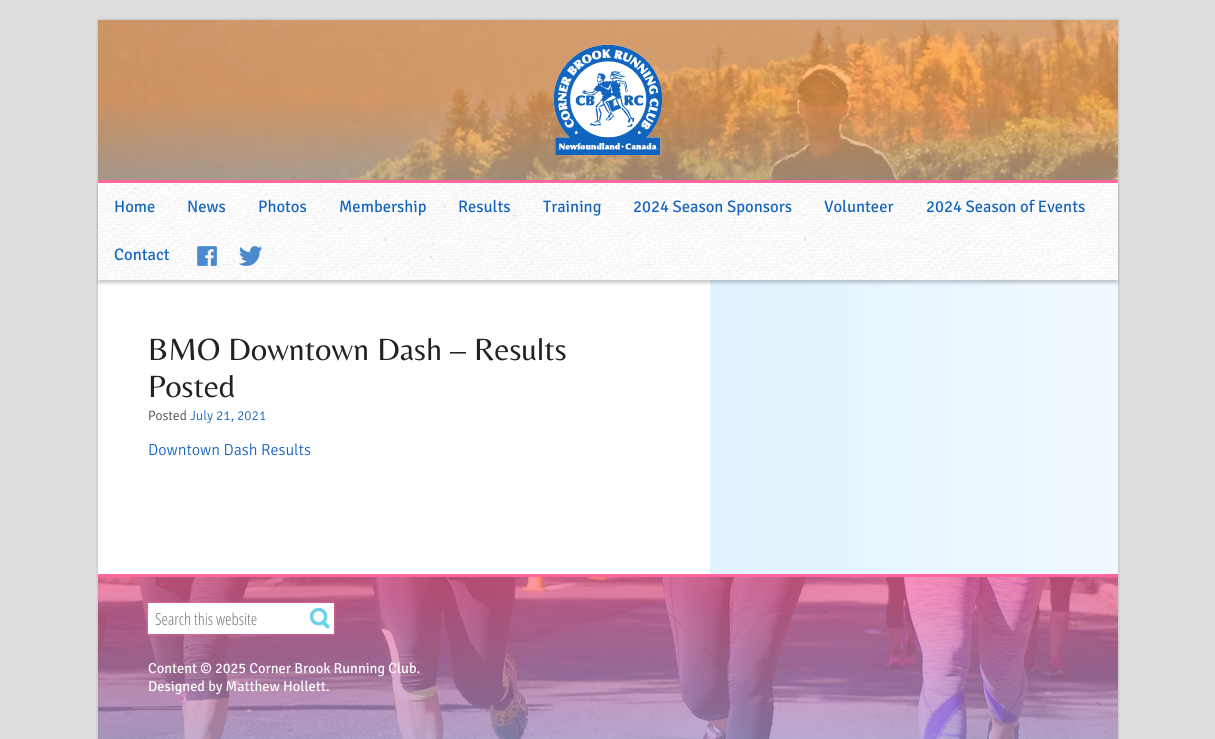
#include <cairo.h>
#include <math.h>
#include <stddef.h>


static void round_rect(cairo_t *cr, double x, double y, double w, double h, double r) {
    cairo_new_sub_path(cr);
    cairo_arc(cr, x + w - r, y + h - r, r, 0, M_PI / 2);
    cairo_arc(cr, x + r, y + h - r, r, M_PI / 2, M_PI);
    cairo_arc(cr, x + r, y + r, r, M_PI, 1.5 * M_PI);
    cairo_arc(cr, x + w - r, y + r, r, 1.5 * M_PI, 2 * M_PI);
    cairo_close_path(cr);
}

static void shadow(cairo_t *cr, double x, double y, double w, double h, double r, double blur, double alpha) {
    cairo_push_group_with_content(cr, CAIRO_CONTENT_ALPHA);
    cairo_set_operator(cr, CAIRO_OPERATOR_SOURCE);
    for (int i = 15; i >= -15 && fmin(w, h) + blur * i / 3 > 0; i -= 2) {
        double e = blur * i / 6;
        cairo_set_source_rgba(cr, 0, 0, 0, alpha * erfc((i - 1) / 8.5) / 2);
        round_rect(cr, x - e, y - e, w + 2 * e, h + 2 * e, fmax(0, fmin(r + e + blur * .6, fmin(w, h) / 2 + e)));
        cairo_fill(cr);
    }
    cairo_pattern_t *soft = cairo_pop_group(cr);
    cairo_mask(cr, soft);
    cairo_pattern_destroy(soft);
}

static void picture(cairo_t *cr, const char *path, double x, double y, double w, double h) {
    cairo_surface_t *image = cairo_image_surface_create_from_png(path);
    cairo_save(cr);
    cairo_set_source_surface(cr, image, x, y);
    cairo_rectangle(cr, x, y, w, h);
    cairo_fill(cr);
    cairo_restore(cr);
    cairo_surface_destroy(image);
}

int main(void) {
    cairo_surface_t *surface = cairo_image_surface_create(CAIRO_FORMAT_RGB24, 1215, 739);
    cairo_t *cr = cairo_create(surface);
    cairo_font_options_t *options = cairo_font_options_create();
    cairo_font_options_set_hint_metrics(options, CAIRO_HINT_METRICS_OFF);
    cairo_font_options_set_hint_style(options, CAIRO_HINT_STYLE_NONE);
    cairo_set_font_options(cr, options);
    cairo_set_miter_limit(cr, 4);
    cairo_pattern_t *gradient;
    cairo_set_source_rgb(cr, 0.867, 0.867, 0.867);
    cairo_paint(cr);
    cairo_set_source_rgb(cr, 0, 0, 0);
    shadow(cr, 98, 20, 1020, 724, 0, 1.5, 0.2);
    gradient = cairo_pattern_create_linear(98, 447, 1118, 447);
    cairo_pattern_add_color_stop_rgba(gradient, 0, 1, 1, 1, 1);
    cairo_pattern_add_color_stop_rgba(gradient, 0.6, 1, 1, 1, 1);
    cairo_pattern_add_color_stop_rgba(gradient, 0.6, 0.878, 0.953, 1, 1);
    cairo_pattern_add_color_stop_rgba(gradient, 1, 0.945, 0.976, 1, 1);
    cairo_set_source(cr, gradient);
    cairo_pattern_destroy(gradient);
    cairo_rectangle(cr, 98, 280, 1020, 294);
    cairo_fill(cr);
    picture(cr, "img1.png", 98, 20, 1020, 160);
    cairo_set_source_rgb(cr, 1, 0.4, 0.616);
    cairo_rectangle(cr, 98, 180, 1020, 3);
    cairo_fill(cr);
    picture(cr, "img2.png", 553, 45, 110, 110);
    cairo_set_source_rgb(cr, 0, 0, 0);
    shadow(cr, 98, 186, 1020, 97, 0, 1.5, 0.2);
    picture(cr, "img3.png", 98, 183, 1020, 97);
    cairo_select_font_face(cr, "Signika Negative", CAIRO_FONT_SLANT_NORMAL, CAIRO_FONT_WEIGHT_NORMAL);
    cairo_set_font_size(cr, 16.6);
    cairo_set_source_rgb(cr, 0.067, 0.392, 0.749);
    cairo_move_to(cr, 114, 212);
    cairo_show_text(cr, "Home");
    cairo_move_to(cr, 187, 212);
    cairo_show_text(cr, "News");
    cairo_move_to(cr, 258, 212);
    cairo_show_text(cr, "Photos");
    cairo_move_to(cr, 339, 212);
    cairo_show_text(cr, "Membership");
    cairo_move_to(cr, 458, 212);
    cairo_show_text(cr, "Results");
    cairo_move_to(cr, 543, 212);
    cairo_show_text(cr, "Training");
    cairo_move_to(cr, 633, 212);
    cairo_show_text(cr, "2024 Season Sponsors");
    cairo_move_to(cr, 824, 212);
    cairo_show_text(cr, "Volunteer");
    cairo_move_to(cr, 926, 212);
    cairo_show_text(cr, "2024 Season of Events");
    cairo_move_to(cr, 114, 260);
    cairo_show_text(cr, "Contact");
    picture(cr, "img4.png", 197, 246, 20, 20);
    picture(cr, "img5.png", 239, 246, 23, 20);
    cairo_select_font_face(cr, "Belleza", CAIRO_FONT_SLANT_NORMAL, CAIRO_FONT_WEIGHT_NORMAL);
    cairo_set_font_size(cr, 32);
    cairo_set_source_rgb(cr, 0.133, 0.133, 0.133);
    cairo_move_to(cr, 148, 360);
    cairo_show_text(cr, "BMO Downtown Dash – Results");
    cairo_move_to(cr, 148, 397);
    cairo_show_text(cr, "Posted");
    cairo_select_font_face(cr, "Signika Negative Light", CAIRO_FONT_SLANT_NORMAL, CAIRO_FONT_WEIGHT_NORMAL);
    cairo_set_font_size(cr, 13.5);
    cairo_set_source_rgb(cr, 0.267, 0.267, 0.267);
    cairo_move_to(cr, 148, 420);
    cairo_show_text(cr, "Posted");
    cairo_set_source_rgb(cr, 0.067, 0.392, 0.749);
    cairo_move_to(cr, 190, 420);
    cairo_show_text(cr, "July 21, 2021");
    cairo_set_font_size(cr, 16);
    cairo_move_to(cr, 148, 455);
    cairo_show_text(cr, "Downtown Dash Results");
    picture(cr, "img6.png", 98, 577, 1020, 162);
    cairo_set_source_rgb(cr, 1, 0.4, 0.616);
    cairo_rectangle(cr, 98, 574, 1020, 3);
    cairo_fill(cr);
    cairo_set_source_rgb(cr, 1, 0.4, 0.616);
    shadow(cr, 148, 603, 186, 31, 0, 1.5, 1);
    cairo_set_source_rgb(cr, 1, 1, 1);
    cairo_rectangle(cr, 148, 603, 186, 31);
    cairo_fill(cr);
    cairo_select_font_face(cr, "Open Sans Condensed Light", CAIRO_FONT_SLANT_NORMAL, CAIRO_FONT_WEIGHT_NORMAL);
    cairo_set_font_size(cr, 16.5);
    cairo_set_source_rgb(cr, 0.459, 0.459, 0.459);
    cairo_move_to(cr, 155, 625);
    cairo_show_text(cr, "Search this website");
    picture(cr, "img7.png", 310, 608, 20, 21);
    cairo_select_font_face(cr, "Signika Negative", CAIRO_FONT_SLANT_NORMAL, CAIRO_FONT_WEIGHT_NORMAL);
    cairo_set_font_size(cr, 14.4);
    cairo_set_source_rgb(cr, 1, 1, 1);
    cairo_move_to(cr, 148, 673);
    cairo_show_text(cr, "Content © 2025 Corner Brook Running Club.");
    cairo_move_to(cr, 148, 691);
    cairo_show_text(cr, "Designed by Matthew Hollett.");
    cairo_surface_write_to_png(surface, "page.png");
    cairo_font_options_destroy(options);
    cairo_destroy(cr);
    cairo_surface_destroy(surface);
    return 0;
}
